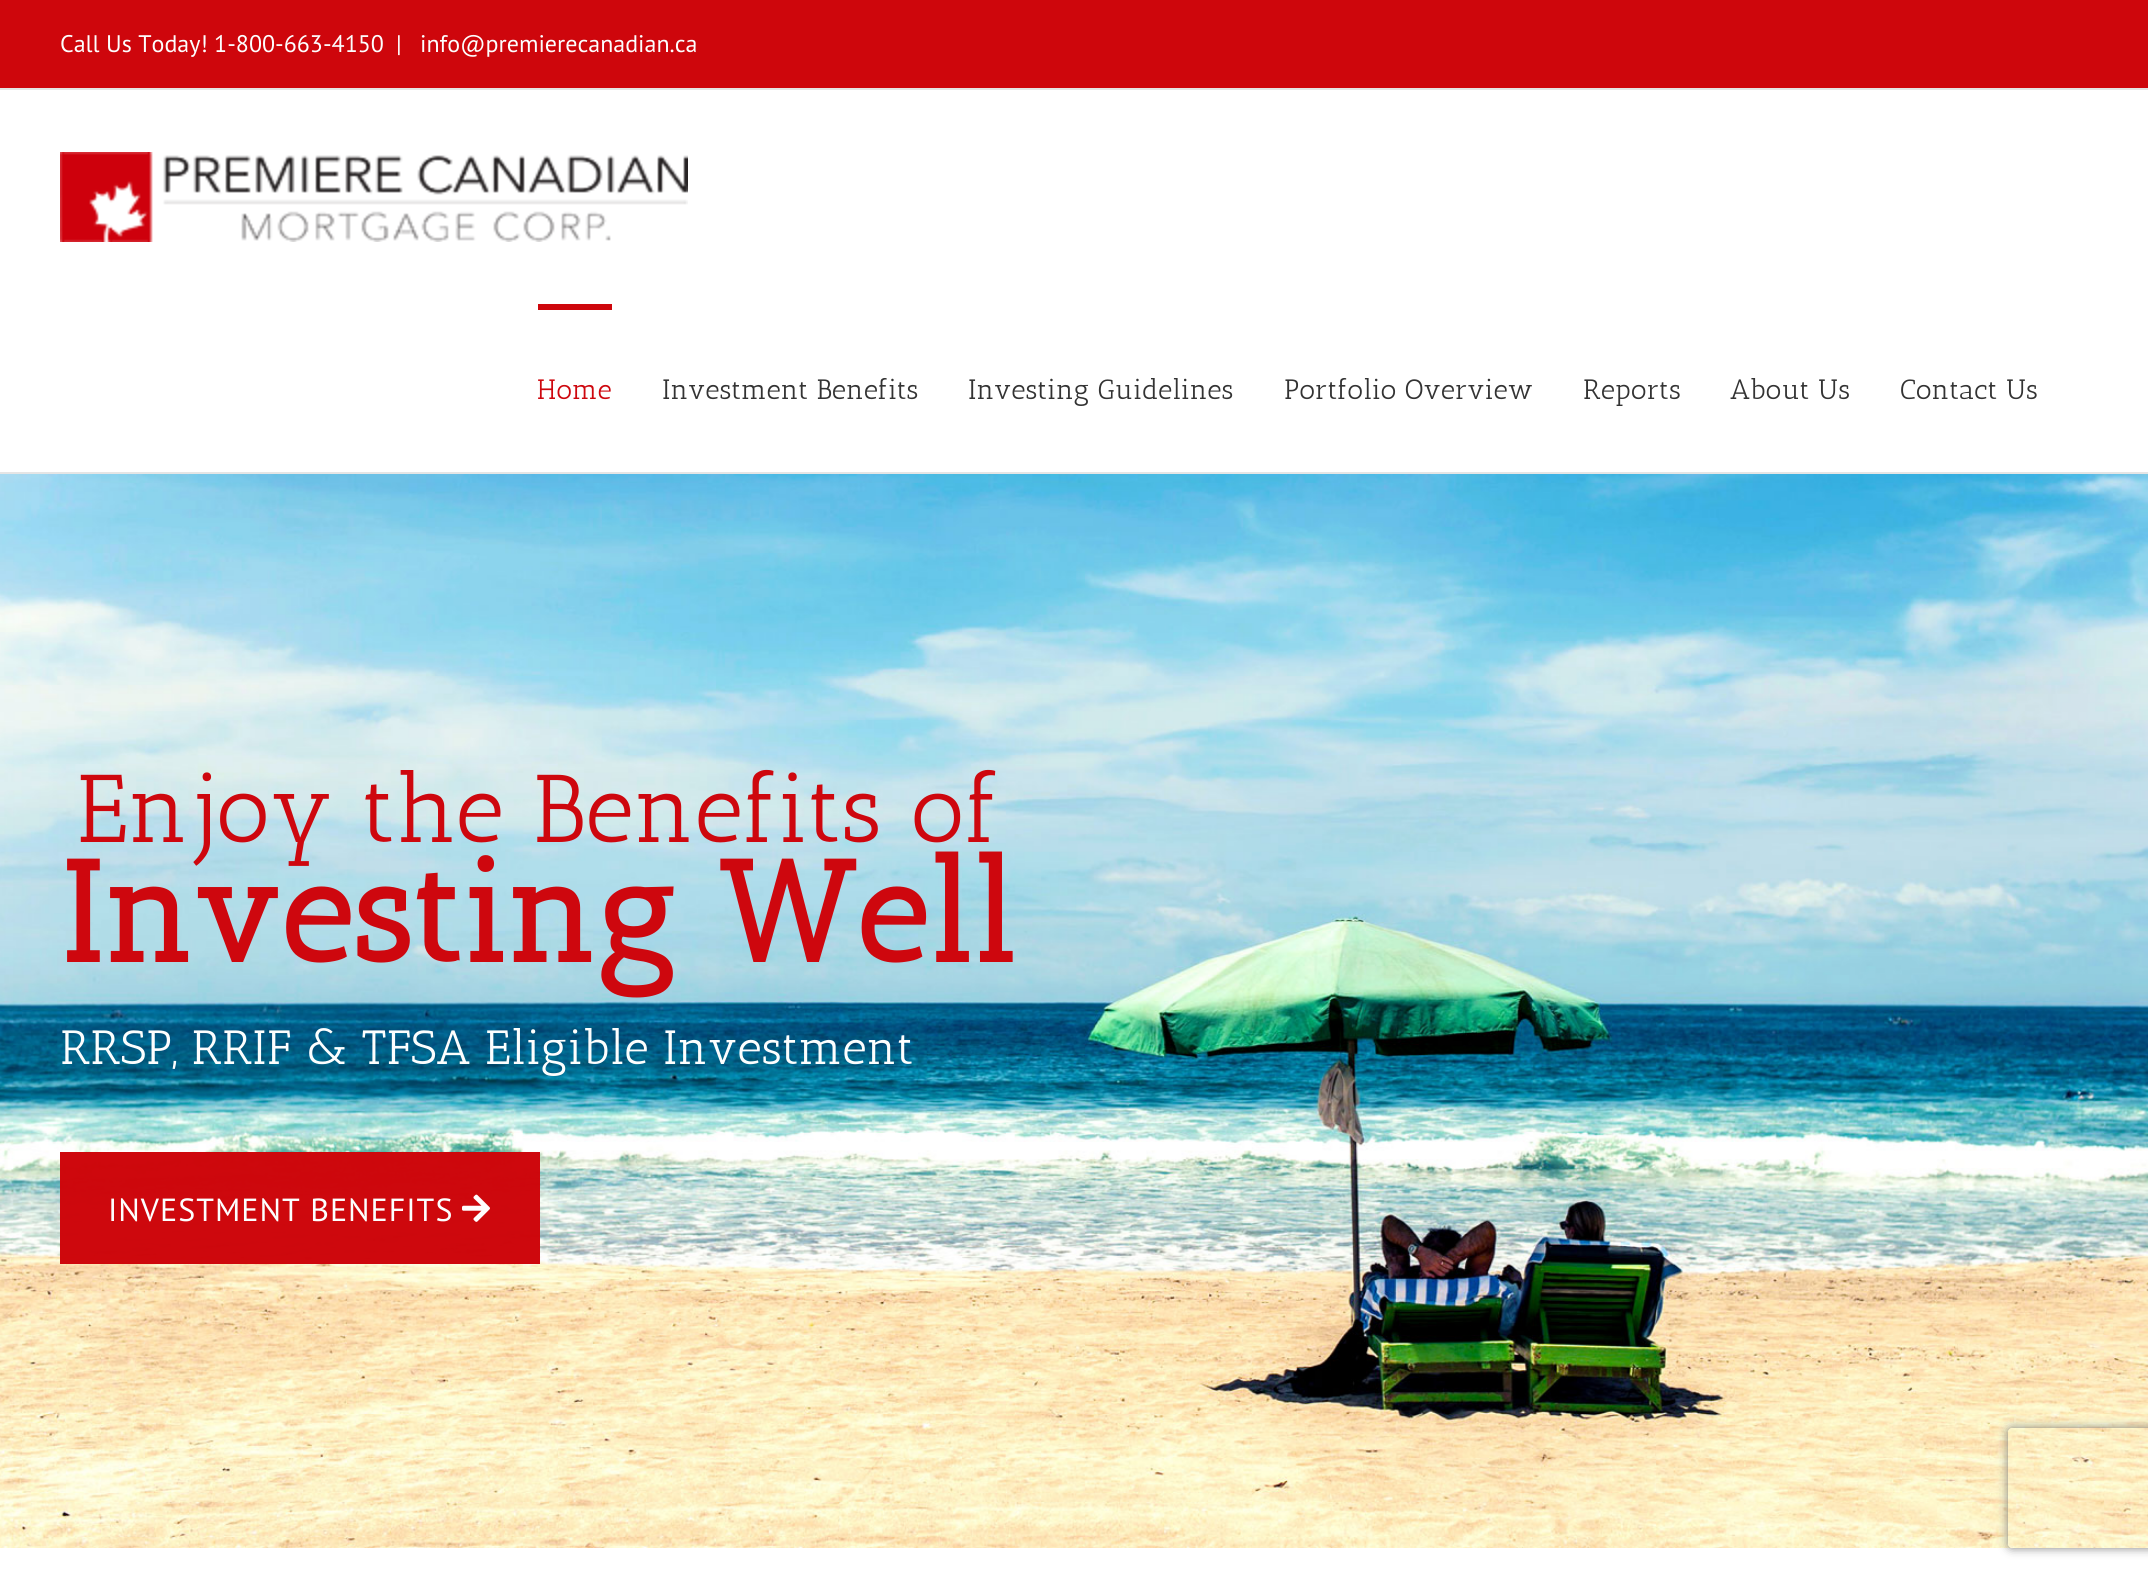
#include <cairo.h>
#include <math.h>
#include <stddef.h>


static void spaced_text(cairo_t *cr, double x, double y, const char *s, double letter, double word) {
    cairo_move_to(cr, x, y);
    while (*s) {
        char ch[5] = {0};
        int n = 0;
        do ch[n++] = *s++; while ((*s & 0xC0) == 0x80);
        cairo_show_text(cr, ch);
        cairo_rel_move_to(cr, letter + word * (*ch == ' '), 0);
    }
}

static void round_rect(cairo_t *cr, double x, double y, double w, double h, double r) {
    cairo_new_sub_path(cr);
    cairo_arc(cr, x + w - r, y + h - r, r, 0, M_PI / 2);
    cairo_arc(cr, x + r, y + h - r, r, M_PI / 2, M_PI);
    cairo_arc(cr, x + r, y + r, r, M_PI, 1.5 * M_PI);
    cairo_arc(cr, x + w - r, y + r, r, 1.5 * M_PI, 2 * M_PI);
    cairo_close_path(cr);
}

static void shadow(cairo_t *cr, double x, double y, double w, double h, double r, double blur, double alpha) {
    cairo_push_group_with_content(cr, CAIRO_CONTENT_ALPHA);
    cairo_set_operator(cr, CAIRO_OPERATOR_SOURCE);
    for (int i = 15; i >= -15 && fmin(w, h) + blur * i / 3 > 0; i -= 2) {
        double e = blur * i / 6;
        cairo_set_source_rgba(cr, 0, 0, 0, alpha * erfc((i - 1) / 8.5) / 2);
        round_rect(cr, x - e, y - e, w + 2 * e, h + 2 * e, fmax(0, fmin(r + e + blur * .6, fmin(w, h) / 2 + e)));
        cairo_fill(cr);
    }
    cairo_pattern_t *soft = cairo_pop_group(cr);
    cairo_mask(cr, soft);
    cairo_pattern_destroy(soft);
}

static void picture(cairo_t *cr, const char *path, double x, double y, double w, double h) {
    cairo_surface_t *image = cairo_image_surface_create_from_png(path);
    cairo_save(cr);
    cairo_set_source_surface(cr, image, x, y);
    cairo_rectangle(cr, x, y, w, h);
    cairo_fill(cr);
    cairo_restore(cr);
    cairo_surface_destroy(image);
}

int main(void) {
    cairo_surface_t *surface = cairo_image_surface_create(CAIRO_FORMAT_RGB24, 2148, 1576);
    cairo_t *cr = cairo_create(surface);
    cairo_font_options_t *options = cairo_font_options_create();
    cairo_font_options_set_hint_metrics(options, CAIRO_HINT_METRICS_OFF);
    cairo_font_options_set_hint_style(options, CAIRO_HINT_STYLE_NONE);
    cairo_set_font_options(cr, options);
    cairo_set_miter_limit(cr, 4);
    cairo_set_source_rgb(cr, 1, 1, 1);
    cairo_paint(cr);
    cairo_set_source_rgb(cr, 0.808, 0.024, 0.047);
    cairo_rectangle(cr, 0, 0, 2148, 88);
    cairo_fill(cr);
    cairo_set_source_rgb(cr, 0.898, 0.898, 0.898);
    cairo_rectangle(cr, 0, 88, 2148, 2);
    cairo_fill(cr);
    cairo_select_font_face(cr, "PT Sans", CAIRO_FONT_SLANT_NORMAL, CAIRO_FONT_WEIGHT_NORMAL);
    cairo_set_font_size(cr, 24);
    cairo_set_source_rgb(cr, 0.992, 0.996, 0.996);
    cairo_move_to(cr, 60, 52);
    cairo_show_text(cr, "Call Us Today! 1-800-663-4150");
    cairo_move_to(cr, 396, 52);
    cairo_show_text(cr, "|");
    cairo_move_to(cr, 420, 52);
    cairo_show_text(cr, "info@premierecanadian.ca");
    cairo_set_source_rgb(cr, 0.898, 0.898, 0.898);
    cairo_rectangle(cr, 0, 472, 2148, 2);
    cairo_fill(cr);
    picture(cr, "img1.png", 60, 152, 628, 90);
    cairo_set_source_rgb(cr, 0.808, 0.024, 0.047);
    cairo_rectangle(cr, 538, 304, 74, 6);
    cairo_fill(cr);
    cairo_select_font_face(cr, "Antic Slab", CAIRO_FONT_SLANT_NORMAL, CAIRO_FONT_WEIGHT_NORMAL);
    cairo_set_font_size(cr, 28);
    cairo_set_source_rgb(cr, 0.808, 0.031, 0.055);
    cairo_move_to(cr, 537, 399);
    cairo_show_text(cr, "Home");
    cairo_set_source_rgb(cr, 0.2, 0.2, 0.2);
    cairo_move_to(cr, 662, 399);
    cairo_show_text(cr, "Investment Benefits");
    cairo_move_to(cr, 968, 399);
    cairo_show_text(cr, "Investing Guidelines");
    cairo_move_to(cr, 1284, 399);
    cairo_show_text(cr, "Portfolio Overview");
    cairo_move_to(cr, 1583, 399);
    cairo_show_text(cr, "Reports");
    cairo_move_to(cr, 1730, 399);
    cairo_show_text(cr, "About Us");
    cairo_move_to(cr, 1900, 399);
    cairo_show_text(cr, "Contact Us");
    picture(cr, "img2.png", 0, 474, 2148, 1074);
    cairo_set_font_size(cr, 96);
    cairo_set_source_rgb(cr, 0.808, 0.031, 0.055);
    cairo_move_to(cr, 76, 842);
    cairo_show_text(cr, "Enjoy the Benefits of");
    cairo_select_font_face(cr, "Antic Slab", CAIRO_FONT_SLANT_NORMAL, CAIRO_FONT_WEIGHT_BOLD);
    cairo_set_font_size(cr, 142);
    cairo_move_to(cr, 60, 962);
    cairo_show_text(cr, "Investing Well");
    cairo_select_font_face(cr, "Antic Slab", CAIRO_FONT_SLANT_NORMAL, CAIRO_FONT_WEIGHT_NORMAL);
    cairo_set_font_size(cr, 48);
    cairo_set_source_rgb(cr, 0.992, 0.996, 0.996);
    cairo_move_to(cr, 60, 1064);
    cairo_show_text(cr, "RRSP, RRIF & TFSA Eligible Investment");
    cairo_set_source_rgba(cr, 0.808, 0.024, 0.047, 0.99);
    cairo_rectangle(cr, 60, 1152, 480, 112);
    cairo_fill(cr);
    cairo_select_font_face(cr, "PT Sans", CAIRO_FONT_SLANT_NORMAL, CAIRO_FONT_WEIGHT_NORMAL);
    cairo_set_font_size(cr, 32);
    cairo_set_source_rgb(cr, 0.992, 0.996, 0.996);
    spaced_text(cr, 108, 1221, "INVESTMENT BENEFITS", 1, 0);
    picture(cr, "img3.png", 462, 1194, 28, 28);
    cairo_save(cr);
    cairo_set_fill_rule(cr, CAIRO_FILL_RULE_EVEN_ODD);
    cairo_new_path(cr);
    cairo_move_to(cr, 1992, 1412);
    cairo_line_to(cr, 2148, 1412);
    cairo_line_to(cr, 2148, 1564);
    cairo_line_to(cr, 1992, 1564);
    cairo_close_path(cr);
    cairo_move_to(cr, 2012, 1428);
    cairo_line_to(cr, 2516, 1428);
    cairo_curve_to(cr, 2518, 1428, 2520, 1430, 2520, 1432);
    cairo_line_to(cr, 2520, 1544);
    cairo_curve_to(cr, 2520, 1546, 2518, 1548, 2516, 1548);
    cairo_line_to(cr, 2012, 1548);
    cairo_curve_to(cr, 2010, 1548, 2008, 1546, 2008, 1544);
    cairo_line_to(cr, 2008, 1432);
    cairo_curve_to(cr, 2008, 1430, 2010, 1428, 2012, 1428);
    cairo_close_path(cr);
    cairo_clip(cr);
    cairo_set_source_rgb(cr, 0.502, 0.502, 0.502);
    shadow(cr, 2008, 1428, 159, 120, 4, 5, 1);
    cairo_restore(cr);
    cairo_surface_write_to_png(surface, "page.png");
    cairo_font_options_destroy(options);
    cairo_destroy(cr);
    cairo_surface_destroy(surface);
    return 0;
}
